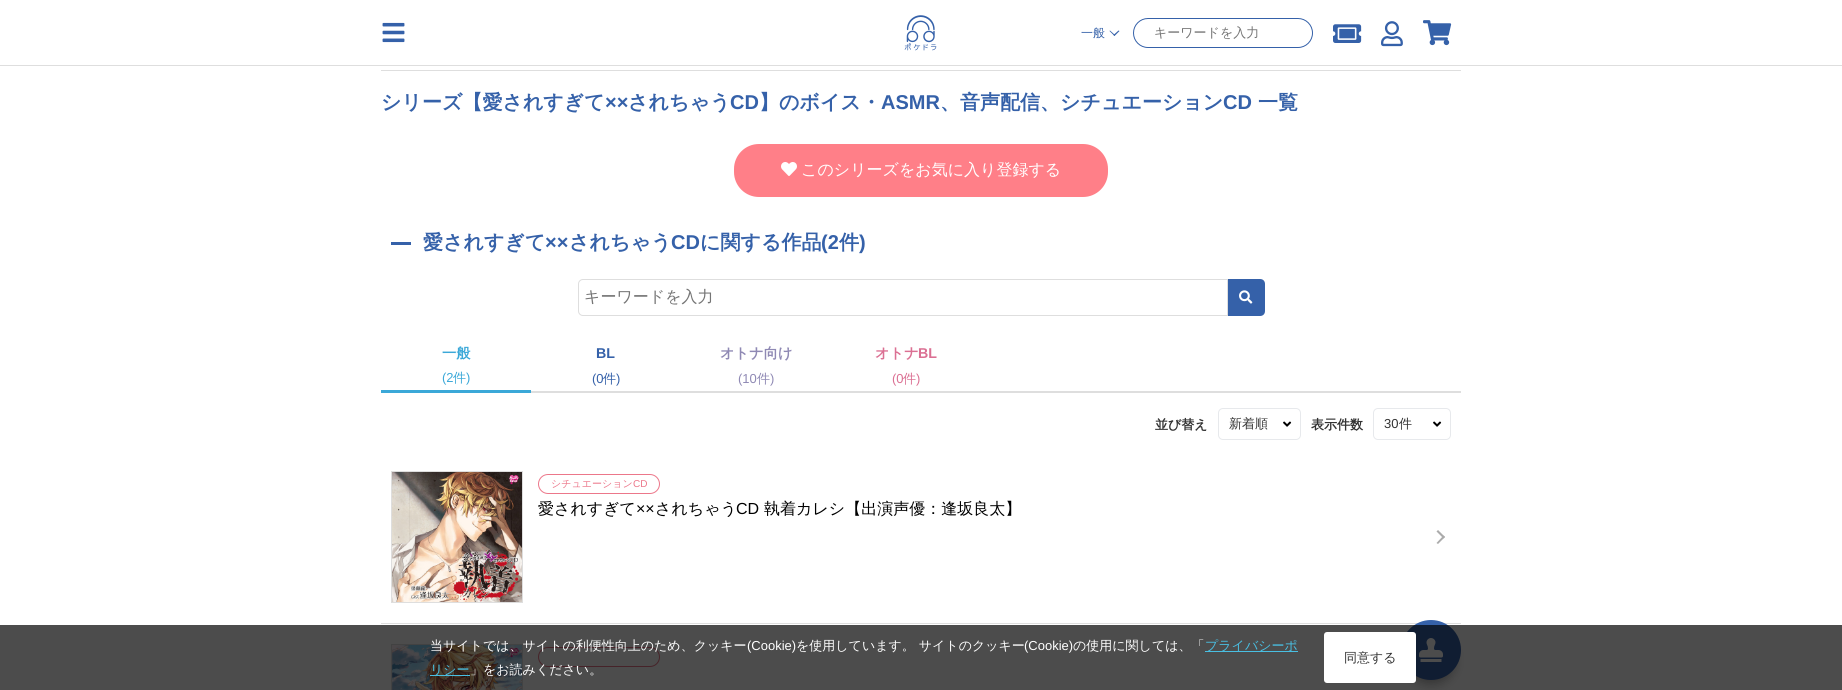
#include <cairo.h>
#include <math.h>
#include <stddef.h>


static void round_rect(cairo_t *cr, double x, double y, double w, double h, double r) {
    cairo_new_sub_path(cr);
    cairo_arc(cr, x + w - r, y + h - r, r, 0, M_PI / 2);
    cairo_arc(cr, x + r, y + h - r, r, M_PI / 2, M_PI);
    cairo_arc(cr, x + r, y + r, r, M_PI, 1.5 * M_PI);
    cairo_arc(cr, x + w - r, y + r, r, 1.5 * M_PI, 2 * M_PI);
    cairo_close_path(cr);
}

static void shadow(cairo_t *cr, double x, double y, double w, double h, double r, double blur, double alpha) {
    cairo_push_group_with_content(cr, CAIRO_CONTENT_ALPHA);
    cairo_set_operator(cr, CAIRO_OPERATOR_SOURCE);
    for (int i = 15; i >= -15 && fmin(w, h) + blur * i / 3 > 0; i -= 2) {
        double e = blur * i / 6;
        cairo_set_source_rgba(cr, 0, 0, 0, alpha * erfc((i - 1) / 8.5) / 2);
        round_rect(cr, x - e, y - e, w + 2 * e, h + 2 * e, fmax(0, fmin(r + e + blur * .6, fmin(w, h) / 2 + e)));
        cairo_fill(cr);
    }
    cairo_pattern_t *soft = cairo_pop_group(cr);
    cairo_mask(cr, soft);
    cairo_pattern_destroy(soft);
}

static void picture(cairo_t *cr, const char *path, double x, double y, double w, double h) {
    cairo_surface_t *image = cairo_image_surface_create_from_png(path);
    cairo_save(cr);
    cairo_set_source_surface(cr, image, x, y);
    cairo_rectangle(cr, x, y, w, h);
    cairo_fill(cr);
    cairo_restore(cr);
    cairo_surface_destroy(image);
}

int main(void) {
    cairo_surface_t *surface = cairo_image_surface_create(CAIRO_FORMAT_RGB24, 1842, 690);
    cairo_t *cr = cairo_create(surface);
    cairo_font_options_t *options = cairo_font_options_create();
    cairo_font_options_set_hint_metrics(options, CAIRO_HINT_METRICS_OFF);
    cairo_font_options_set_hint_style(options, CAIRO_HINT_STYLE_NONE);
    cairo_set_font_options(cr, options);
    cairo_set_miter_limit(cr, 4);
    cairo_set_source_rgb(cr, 1, 1, 1);
    cairo_paint(cr);
    cairo_set_source_rgb(cr, 0.871, 0.871, 0.871);
    cairo_rectangle(cr, 0, 65, 1842, 1);
    cairo_fill(cr);
    picture(cr, "img1.png", 382, 22, 23, 21);
    picture(cr, "img2.png", 904, 15, 33, 36);
    cairo_select_font_face(cr, "WenQuanYi Zen Hei Medium", CAIRO_FONT_SLANT_NORMAL, CAIRO_FONT_WEIGHT_NORMAL);
    cairo_set_font_size(cr, 12);
    cairo_set_source_rgb(cr, 0.208, 0.38, 0.663);
    cairo_move_to(cr, 1081, 37);
    cairo_show_text(cr, "一般");
    cairo_new_path(cr);
    cairo_move_to(cr, 1119.5, 31);
    cairo_line_to(cr, 1114.5, 36);
    cairo_line_to(cr, 1113.5, 35);
    cairo_line_to(cr, 1118.5, 30.5);
    cairo_close_path(cr);
    cairo_fill(cr);
    cairo_new_path(cr);
    cairo_move_to(cr, 1115, 35);
    cairo_line_to(cr, 1114.5, 36);
    cairo_line_to(cr, 1109.5, 31);
    cairo_line_to(cr, 1110, 30.5);
    cairo_close_path(cr);
    cairo_fill(cr);
    round_rect(cr, 1133.5, 18.5, 179, 29, 14.5);
    cairo_set_line_width(cr, 1);
    cairo_stroke(cr);
    cairo_set_font_size(cr, 13);
    cairo_set_source_rgb(cr, 0.459, 0.459, 0.459);
    cairo_move_to(cr, 1154, 37);
    cairo_show_text(cr, "キーワードを入力");
    picture(cr, "img3.png", 1333, 24, 29, 19);
    picture(cr, "img4.png", 1381, 21, 22, 26);
    picture(cr, "img5.png", 1423, 20, 29, 26);
    cairo_set_source_rgb(cr, 0.871, 0.871, 0.871);
    cairo_rectangle(cr, 381, 70, 1080, 1);
    cairo_fill(cr);
    cairo_select_font_face(cr, "WenQuanYi Zen Hei", CAIRO_FONT_SLANT_NORMAL, CAIRO_FONT_WEIGHT_BOLD);
    cairo_set_font_size(cr, 20);
    cairo_set_source_rgb(cr, 0.208, 0.38, 0.663);
    cairo_move_to(cr, 381, 109);
    cairo_show_text(cr, "シリーズ【愛されすぎて");
    cairo_select_font_face(cr, "Liberation Sans", CAIRO_FONT_SLANT_NORMAL, CAIRO_FONT_WEIGHT_BOLD);
    cairo_move_to(cr, 605, 109);
    cairo_show_text(cr, "××");
    cairo_select_font_face(cr, "WenQuanYi Zen Hei", CAIRO_FONT_SLANT_NORMAL, CAIRO_FONT_WEIGHT_BOLD);
    cairo_move_to(cr, 628, 109);
    cairo_show_text(cr, "されちゃう");
    cairo_select_font_face(cr, "Liberation Sans", CAIRO_FONT_SLANT_NORMAL, CAIRO_FONT_WEIGHT_BOLD);
    cairo_move_to(cr, 730, 109);
    cairo_show_text(cr, "CD");
    cairo_select_font_face(cr, "WenQuanYi Zen Hei", CAIRO_FONT_SLANT_NORMAL, CAIRO_FONT_WEIGHT_BOLD);
    cairo_move_to(cr, 759, 109);
    cairo_show_text(cr, "】のボイス・");
    cairo_select_font_face(cr, "Liberation Sans", CAIRO_FONT_SLANT_NORMAL, CAIRO_FONT_WEIGHT_BOLD);
    cairo_move_to(cr, 881, 109);
    cairo_show_text(cr, "ASMR");
    cairo_select_font_face(cr, "WenQuanYi Zen Hei", CAIRO_FONT_SLANT_NORMAL, CAIRO_FONT_WEIGHT_BOLD);
    cairo_move_to(cr, 940, 109);
    cairo_show_text(cr, "、音声配信、シチュエーション");
    cairo_select_font_face(cr, "Liberation Sans", CAIRO_FONT_SLANT_NORMAL, CAIRO_FONT_WEIGHT_BOLD);
    cairo_move_to(cr, 1223, 109);
    cairo_show_text(cr, "CD");
    cairo_select_font_face(cr, "WenQuanYi Zen Hei", CAIRO_FONT_SLANT_NORMAL, CAIRO_FONT_WEIGHT_BOLD);
    cairo_move_to(cr, 1258, 109);
    cairo_show_text(cr, "一覧");
    cairo_set_source_rgb(cr, 1, 0.498, 0.533);
    round_rect(cr, 735, 145, 372, 51, 24);
    cairo_fill_preserve(cr);
    cairo_set_line_width(cr, 2);
    cairo_stroke(cr);
    picture(cr, "img6.png", 781, 162, 16, 14);
    cairo_select_font_face(cr, "WenQuanYi Zen Hei Medium", CAIRO_FONT_SLANT_NORMAL, CAIRO_FONT_WEIGHT_NORMAL);
    cairo_set_font_size(cr, 16);
    cairo_set_source_rgb(cr, 1, 1, 1);
    cairo_move_to(cr, 801, 175);
    cairo_show_text(cr, "このシリーズをお気に入り登録する");
    cairo_set_source_rgb(cr, 0.208, 0.38, 0.663);
    cairo_rectangle(cr, 391, 242, 20, 3);
    cairo_fill(cr);
    cairo_select_font_face(cr, "WenQuanYi Zen Hei", CAIRO_FONT_SLANT_NORMAL, CAIRO_FONT_WEIGHT_BOLD);
    cairo_set_font_size(cr, 20);
    cairo_move_to(cr, 423, 249);
    cairo_show_text(cr, "愛されすぎて");
    cairo_select_font_face(cr, "Liberation Sans", CAIRO_FONT_SLANT_NORMAL, CAIRO_FONT_WEIGHT_BOLD);
    cairo_move_to(cr, 545, 249);
    cairo_show_text(cr, "××");
    cairo_select_font_face(cr, "WenQuanYi Zen Hei", CAIRO_FONT_SLANT_NORMAL, CAIRO_FONT_WEIGHT_BOLD);
    cairo_move_to(cr, 569, 249);
    cairo_show_text(cr, "されちゃう");
    cairo_select_font_face(cr, "Liberation Sans", CAIRO_FONT_SLANT_NORMAL, CAIRO_FONT_WEIGHT_BOLD);
    cairo_move_to(cr, 671, 249);
    cairo_show_text(cr, "CD");
    cairo_select_font_face(cr, "WenQuanYi Zen Hei", CAIRO_FONT_SLANT_NORMAL, CAIRO_FONT_WEIGHT_BOLD);
    cairo_move_to(cr, 700, 249);
    cairo_show_text(cr, "に関する作品");
    cairo_select_font_face(cr, "Liberation Sans", CAIRO_FONT_SLANT_NORMAL, CAIRO_FONT_WEIGHT_BOLD);
    cairo_move_to(cr, 821, 249);
    cairo_show_text(cr, "(2");
    cairo_select_font_face(cr, "WenQuanYi Zen Hei", CAIRO_FONT_SLANT_NORMAL, CAIRO_FONT_WEIGHT_BOLD);
    cairo_move_to(cr, 839, 249);
    cairo_show_text(cr, "件");
    cairo_select_font_face(cr, "Liberation Sans", CAIRO_FONT_SLANT_NORMAL, CAIRO_FONT_WEIGHT_BOLD);
    cairo_move_to(cr, 859, 249);
    cairo_show_text(cr, ")");
    cairo_new_path(cr);
    cairo_move_to(cr, 583, 279.5);
    cairo_line_to(cr, 1227.5, 279.5);
    cairo_line_to(cr, 1227.5, 315.5);
    cairo_line_to(cr, 583, 315.5);
    cairo_curve_to(cr, 580.5, 315.5, 578.5, 313.5, 578.5, 311);
    cairo_line_to(cr, 578.5, 284);
    cairo_curve_to(cr, 578.5, 281.5, 580.5, 279.5, 583, 279.5);
    cairo_close_path(cr);
    cairo_set_source_rgb(cr, 0.871, 0.871, 0.871);
    cairo_set_line_width(cr, 1);
    cairo_stroke(cr);
    cairo_select_font_face(cr, "WenQuanYi Zen Hei Medium", CAIRO_FONT_SLANT_NORMAL, CAIRO_FONT_WEIGHT_NORMAL);
    cairo_set_font_size(cr, 16);
    cairo_set_source_rgb(cr, 0.459, 0.459, 0.459);
    cairo_move_to(cr, 584, 302);
    cairo_show_text(cr, "キーワードを入力");
    cairo_set_source_rgb(cr, 0.208, 0.38, 0.663);
    cairo_new_path(cr);
    cairo_move_to(cr, 1228, 279);
    cairo_line_to(cr, 1260, 279);
    cairo_curve_to(cr, 1263, 279, 1265, 281, 1265, 284);
    cairo_line_to(cr, 1265, 311);
    cairo_curve_to(cr, 1265, 314, 1263, 316, 1260, 316);
    cairo_line_to(cr, 1228, 316);
    cairo_close_path(cr);
    cairo_fill(cr);
    picture(cr, "img7.png", 1239, 290, 14, 14);
    cairo_set_source_rgb(cr, 0.871, 0.871, 0.871);
    cairo_rectangle(cr, 531, 391, 930, 2);
    cairo_fill(cr);
    cairo_set_source_rgb(cr, 0.231, 0.659, 0.847);
    cairo_rectangle(cr, 381, 390, 150, 3);
    cairo_fill(cr);
    cairo_select_font_face(cr, "WenQuanYi Zen Hei", CAIRO_FONT_SLANT_NORMAL, CAIRO_FONT_WEIGHT_BOLD);
    cairo_set_font_size(cr, 14.25);
    cairo_move_to(cr, 442, 358);
    cairo_show_text(cr, "一般");
    cairo_select_font_face(cr, "Liberation Sans", CAIRO_FONT_SLANT_NORMAL, CAIRO_FONT_WEIGHT_NORMAL);
    cairo_set_font_size(cr, 13);
    cairo_move_to(cr, 442, 382);
    cairo_show_text(cr, "(2");
    cairo_select_font_face(cr, "WenQuanYi Zen Hei Medium", CAIRO_FONT_SLANT_NORMAL, CAIRO_FONT_WEIGHT_NORMAL);
    cairo_move_to(cr, 453, 382);
    cairo_show_text(cr, "件");
    cairo_select_font_face(cr, "Liberation Sans", CAIRO_FONT_SLANT_NORMAL, CAIRO_FONT_WEIGHT_NORMAL);
    cairo_move_to(cr, 466, 382);
    cairo_show_text(cr, ")");
    cairo_select_font_face(cr, "Liberation Sans", CAIRO_FONT_SLANT_NORMAL, CAIRO_FONT_WEIGHT_BOLD);
    cairo_set_font_size(cr, 14.25);
    cairo_set_source_rgb(cr, 0.208, 0.38, 0.663);
    cairo_move_to(cr, 596, 358);
    cairo_show_text(cr, "BL");
    cairo_select_font_face(cr, "Liberation Sans", CAIRO_FONT_SLANT_NORMAL, CAIRO_FONT_WEIGHT_NORMAL);
    cairo_set_font_size(cr, 13);
    cairo_move_to(cr, 592, 383);
    cairo_show_text(cr, "(0");
    cairo_select_font_face(cr, "WenQuanYi Zen Hei Medium", CAIRO_FONT_SLANT_NORMAL, CAIRO_FONT_WEIGHT_NORMAL);
    cairo_move_to(cr, 603, 383);
    cairo_show_text(cr, "件");
    cairo_select_font_face(cr, "Liberation Sans", CAIRO_FONT_SLANT_NORMAL, CAIRO_FONT_WEIGHT_NORMAL);
    cairo_move_to(cr, 616, 383);
    cairo_show_text(cr, ")");
    cairo_select_font_face(cr, "WenQuanYi Zen Hei", CAIRO_FONT_SLANT_NORMAL, CAIRO_FONT_WEIGHT_BOLD);
    cairo_set_font_size(cr, 14.25);
    cairo_set_source_rgb(cr, 0.561, 0.537, 0.706);
    cairo_move_to(cr, 720, 358);
    cairo_show_text(cr, "オトナ向け");
    cairo_select_font_face(cr, "Liberation Sans", CAIRO_FONT_SLANT_NORMAL, CAIRO_FONT_WEIGHT_NORMAL);
    cairo_set_font_size(cr, 13);
    cairo_move_to(cr, 738, 383);
    cairo_show_text(cr, "(10");
    cairo_select_font_face(cr, "WenQuanYi Zen Hei Medium", CAIRO_FONT_SLANT_NORMAL, CAIRO_FONT_WEIGHT_NORMAL);
    cairo_move_to(cr, 757, 383);
    cairo_show_text(cr, "件");
    cairo_select_font_face(cr, "Liberation Sans", CAIRO_FONT_SLANT_NORMAL, CAIRO_FONT_WEIGHT_NORMAL);
    cairo_move_to(cr, 770, 383);
    cairo_show_text(cr, ")");
    cairo_select_font_face(cr, "WenQuanYi Zen Hei", CAIRO_FONT_SLANT_NORMAL, CAIRO_FONT_WEIGHT_BOLD);
    cairo_set_font_size(cr, 14.25);
    cairo_set_source_rgb(cr, 0.859, 0.439, 0.576);
    cairo_move_to(cr, 875, 358);
    cairo_show_text(cr, "オトナ");
    cairo_select_font_face(cr, "Liberation Sans", CAIRO_FONT_SLANT_NORMAL, CAIRO_FONT_WEIGHT_BOLD);
    cairo_move_to(cr, 918, 358);
    cairo_show_text(cr, "BL");
    cairo_select_font_face(cr, "Liberation Sans", CAIRO_FONT_SLANT_NORMAL, CAIRO_FONT_WEIGHT_NORMAL);
    cairo_set_font_size(cr, 13);
    cairo_move_to(cr, 892, 383);
    cairo_show_text(cr, "(0");
    cairo_select_font_face(cr, "WenQuanYi Zen Hei Medium", CAIRO_FONT_SLANT_NORMAL, CAIRO_FONT_WEIGHT_NORMAL);
    cairo_move_to(cr, 903, 383);
    cairo_show_text(cr, "件");
    cairo_select_font_face(cr, "Liberation Sans", CAIRO_FONT_SLANT_NORMAL, CAIRO_FONT_WEIGHT_NORMAL);
    cairo_move_to(cr, 916, 383);
    cairo_show_text(cr, ")");
    cairo_select_font_face(cr, "WenQuanYi Zen Hei", CAIRO_FONT_SLANT_NORMAL, CAIRO_FONT_WEIGHT_BOLD);
    cairo_set_source_rgb(cr, 0.2, 0.2, 0.2);
    cairo_move_to(cr, 1155, 429);
    cairo_show_text(cr, "並び替え");
    round_rect(cr, 1218.5, 408.5, 82, 31, 4.5);
    cairo_set_source_rgb(cr, 0.906, 0.914, 0.922);
    cairo_stroke(cr);
    cairo_select_font_face(cr, "WenQuanYi Zen Hei Medium", CAIRO_FONT_SLANT_NORMAL, CAIRO_FONT_WEIGHT_NORMAL);
    cairo_set_source_rgb(cr, 0.2, 0.2, 0.2);
    cairo_move_to(cr, 1229, 428);
    cairo_show_text(cr, "新着順");
    picture(cr, "img8.png", 1283, 421, 9, 6);
    cairo_select_font_face(cr, "WenQuanYi Zen Hei", CAIRO_FONT_SLANT_NORMAL, CAIRO_FONT_WEIGHT_BOLD);
    cairo_move_to(cr, 1311, 429);
    cairo_show_text(cr, "表示件数");
    round_rect(cr, 1373.5, 408.5, 77, 31, 4.5);
    cairo_set_source_rgb(cr, 0.906, 0.914, 0.922);
    cairo_stroke(cr);
    cairo_select_font_face(cr, "Liberation Sans", CAIRO_FONT_SLANT_NORMAL, CAIRO_FONT_WEIGHT_NORMAL);
    cairo_set_source_rgb(cr, 0.2, 0.2, 0.2);
    cairo_move_to(cr, 1384, 428);
    cairo_show_text(cr, "30");
    cairo_select_font_face(cr, "WenQuanYi Zen Hei Medium", CAIRO_FONT_SLANT_NORMAL, CAIRO_FONT_WEIGHT_NORMAL);
    cairo_move_to(cr, 1399, 428);
    cairo_show_text(cr, "件");
    picture(cr, "img8.png", 1433, 421, 9, 6);
    cairo_set_source_rgb(cr, 0.871, 0.871, 0.871);
    cairo_rectangle(cr, 381, 623, 1080, 1);
    cairo_fill(cr);
    cairo_rectangle(cr, 391.5, 471.5, 131, 131);
    cairo_stroke(cr);
    picture(cr, "img9.png", 392, 472, 130, 130);
    round_rect(cr, 538.5, 474.5, 121, 19, 9.5);
    cairo_set_source_rgb(cr, 0.925, 0.467, 0.541);
    cairo_stroke(cr);
    cairo_set_font_size(cr, 10);
    cairo_move_to(cr, 551, 487);
    cairo_show_text(cr, "シチュエーション");
    cairo_select_font_face(cr, "Liberation Sans", CAIRO_FONT_SLANT_NORMAL, CAIRO_FONT_WEIGHT_NORMAL);
    cairo_move_to(cr, 633, 487);
    cairo_show_text(cr, "CD");
    cairo_select_font_face(cr, "WenQuanYi Zen Hei Medium", CAIRO_FONT_SLANT_NORMAL, CAIRO_FONT_WEIGHT_NORMAL);
    cairo_set_font_size(cr, 16);
    cairo_set_source_rgb(cr, 0, 0, 0);
    cairo_move_to(cr, 538, 514);
    cairo_show_text(cr, "愛されすぎて");
    cairo_select_font_face(cr, "Liberation Sans", CAIRO_FONT_SLANT_NORMAL, CAIRO_FONT_WEIGHT_NORMAL);
    cairo_move_to(cr, 636, 514);
    cairo_show_text(cr, "××");
    cairo_select_font_face(cr, "WenQuanYi Zen Hei Medium", CAIRO_FONT_SLANT_NORMAL, CAIRO_FONT_WEIGHT_NORMAL);
    cairo_move_to(cr, 655, 514);
    cairo_show_text(cr, "されちゃう");
    cairo_select_font_face(cr, "Liberation Sans", CAIRO_FONT_SLANT_NORMAL, CAIRO_FONT_WEIGHT_NORMAL);
    cairo_move_to(cr, 736, 514);
    cairo_show_text(cr, "CD");
    cairo_select_font_face(cr, "WenQuanYi Zen Hei Medium", CAIRO_FONT_SLANT_NORMAL, CAIRO_FONT_WEIGHT_NORMAL);
    cairo_move_to(cr, 764, 514);
    cairo_show_text(cr, "執着カレシ【出演声優：逢坂良太】");
    cairo_set_source_rgb(cr, 0.671, 0.671, 0.671);
    cairo_new_path(cr);
    cairo_move_to(cr, 1438, 530);
    cairo_line_to(cr, 1445, 537);
    cairo_line_to(cr, 1443.5, 538.5);
    cairo_line_to(cr, 1436.5, 531.5);
    cairo_close_path(cr);
    cairo_fill(cr);
    cairo_new_path(cr);
    cairo_move_to(cr, 1443.5, 535.5);
    cairo_line_to(cr, 1445, 537);
    cairo_line_to(cr, 1438, 544);
    cairo_line_to(cr, 1436.5, 543);
    cairo_close_path(cr);
    cairo_fill(cr);
    cairo_rectangle(cr, 391.5, 644.5, 131, 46);
    cairo_set_source_rgb(cr, 0.871, 0.871, 0.871);
    cairo_stroke(cr);
    picture(cr, "img10.png", 392, 645, 130, 45);
    round_rect(cr, 538.5, 647.5, 121, 19, 9.5);
    cairo_set_source_rgb(cr, 0.925, 0.467, 0.541);
    cairo_stroke(cr);
    cairo_set_source_rgb(cr, 0, 0, 0);
    shadow(cr, 1407, 636, 48, 48, 24, 5, 0.3);
    cairo_set_source_rgb(cr, 0.208, 0.38, 0.663);
    cairo_arc(cr, 1431, 650, 30, 0, 2 * M_PI);
    cairo_fill(cr);
    picture(cr, "img11.png", 1419, 638, 24, 24);
    cairo_set_source_rgba(cr, 0, 0, 0, 0.7);
    cairo_rectangle(cr, 0, 625, 1842, 65);
    cairo_fill(cr);
    cairo_set_font_size(cr, 13);
    cairo_set_source_rgb(cr, 1, 1, 1);
    cairo_move_to(cr, 430, 650);
    cairo_show_text(cr, "当サイトでは、サイトの利便性向上のため、クッキー");
    cairo_select_font_face(cr, "Liberation Sans", CAIRO_FONT_SLANT_NORMAL, CAIRO_FONT_WEIGHT_NORMAL);
    cairo_move_to(cr, 747, 650);
    cairo_show_text(cr, "(Cookie)");
    cairo_select_font_face(cr, "WenQuanYi Zen Hei Medium", CAIRO_FONT_SLANT_NORMAL, CAIRO_FONT_WEIGHT_NORMAL);
    cairo_move_to(cr, 796, 650);
    cairo_show_text(cr, "を使用しています。 サイトのクッキー");
    cairo_select_font_face(cr, "Liberation Sans", CAIRO_FONT_SLANT_NORMAL, CAIRO_FONT_WEIGHT_NORMAL);
    cairo_move_to(cr, 1024, 650);
    cairo_show_text(cr, "(Cookie)");
    cairo_select_font_face(cr, "WenQuanYi Zen Hei Medium", CAIRO_FONT_SLANT_NORMAL, CAIRO_FONT_WEIGHT_NORMAL);
    cairo_move_to(cr, 1073, 650);
    cairo_show_text(cr, "の使用に関しては、「");
    cairo_set_source_rgb(cr, 0.286, 0.749, 0.886);
    cairo_rectangle(cr, 1205, 651, 93, 1);
    cairo_fill(cr);
    cairo_move_to(cr, 1205, 650);
    cairo_show_text(cr, "プライバシーポ");
    cairo_rectangle(cr, 430, 675, 40, 1);
    cairo_fill(cr);
    cairo_move_to(cr, 430, 674);
    cairo_show_text(cr, "リシー");
    cairo_set_source_rgb(cr, 1, 1, 1);
    cairo_move_to(cr, 470, 674);
    cairo_show_text(cr, "」をお読みください。");
    round_rect(cr, 1324, 632, 92, 51, 3);
    cairo_fill(cr);
    cairo_set_source_rgb(cr, 0.2, 0.2, 0.2);
    cairo_move_to(cr, 1344, 662);
    cairo_show_text(cr, "同意する");
    cairo_surface_write_to_png(surface, "page.png");
    cairo_font_options_destroy(options);
    cairo_destroy(cr);
    cairo_surface_destroy(surface);
    return 0;
}
